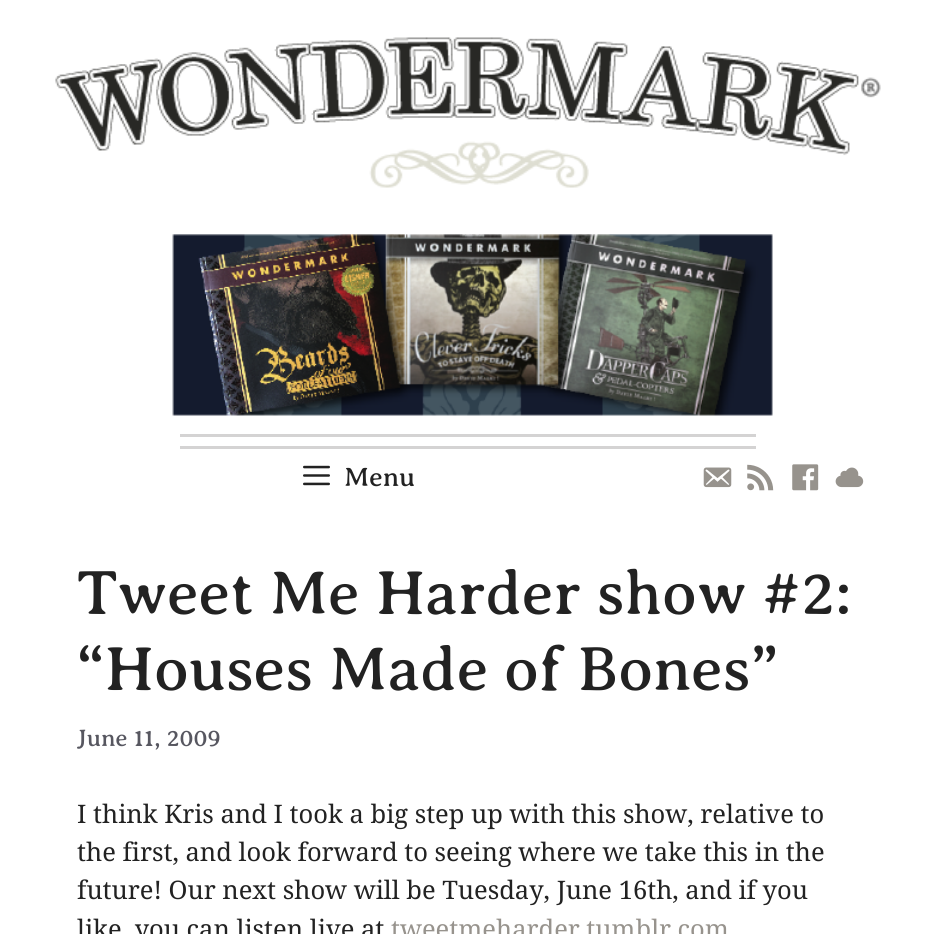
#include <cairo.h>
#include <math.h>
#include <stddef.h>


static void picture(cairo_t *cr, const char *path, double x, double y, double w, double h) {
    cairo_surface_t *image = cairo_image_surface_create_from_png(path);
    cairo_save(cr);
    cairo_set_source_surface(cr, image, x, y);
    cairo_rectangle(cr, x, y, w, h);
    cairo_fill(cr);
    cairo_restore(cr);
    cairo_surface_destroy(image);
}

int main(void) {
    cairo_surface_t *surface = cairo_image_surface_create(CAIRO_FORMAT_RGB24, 935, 934);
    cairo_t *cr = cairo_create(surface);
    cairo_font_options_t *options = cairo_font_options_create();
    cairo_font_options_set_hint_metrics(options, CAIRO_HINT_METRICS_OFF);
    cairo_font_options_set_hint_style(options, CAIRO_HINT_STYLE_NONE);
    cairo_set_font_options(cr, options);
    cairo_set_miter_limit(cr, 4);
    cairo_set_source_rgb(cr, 1, 1, 1);
    cairo_paint(cr);
    picture(cr, "img1.png", 55, 37, 826, 151);
    picture(cr, "img2.png", 172, 234, 601, 182);
    cairo_set_source_rgb(cr, 0.831, 0.827, 0.827);
    cairo_rectangle(cr, 180, 434, 576, 3);
    cairo_fill(cr);
    cairo_rectangle(cr, 180, 446, 576, 3);
    cairo_fill(cr);
    picture(cr, "img3.png", 303, 465, 27, 21);
    cairo_select_font_face(cr, "Averia Serif Libre", CAIRO_FONT_SLANT_NORMAL, CAIRO_FONT_WEIGHT_NORMAL);
    cairo_set_font_size(cr, 27);
    cairo_set_source_rgb(cr, 0.133, 0.133, 0.133);
    cairo_move_to(cr, 344, 486);
    cairo_show_text(cr, "Menu");
    picture(cr, "img4.png", 703, 467, 29, 21);
    picture(cr, "img5.png", 747, 464, 27, 27);
    picture(cr, "img6.png", 792, 464, 27, 27);
    picture(cr, "img7.png", 835, 467, 29, 21);
    cairo_set_font_size(cr, 63);
    cairo_move_to(cr, 77, 614);
    cairo_show_text(cr, "Tweet Me Harder show #2:");
    cairo_move_to(cr, 77, 690);
    cairo_show_text(cr, "“Houses Made of Bones”");
    cairo_set_font_size(cr, 24);
    cairo_set_source_rgb(cr, 0.341, 0.341, 0.376);
    cairo_move_to(cr, 77, 746);
    cairo_show_text(cr, "June 11, 2009");
    cairo_select_font_face(cr, "Noto Serif", CAIRO_FONT_SLANT_NORMAL, CAIRO_FONT_WEIGHT_NORMAL);
    cairo_set_font_size(cr, 25.5);
    cairo_set_source_rgb(cr, 0.133, 0.133, 0.133);
    cairo_move_to(cr, 77, 823);
    cairo_show_text(cr, "I think Kris and I took a big step up with this show, relative to");
    cairo_move_to(cr, 77, 861);
    cairo_show_text(cr, "the first, and look forward to seeing where we take this in the");
    cairo_move_to(cr, 77, 899);
    cairo_show_text(cr, "future! Our next show will be Tuesday, June 16th, and if you");
    cairo_move_to(cr, 77, 938);
    cairo_show_text(cr, "like, you can listen live at");
    cairo_set_source_rgb(cr, 0.592, 0.576, 0.553);
    cairo_move_to(cr, 391, 938);
    cairo_show_text(cr, "tweetmeharder.tumblr.com");
    cairo_surface_write_to_png(surface, "page.png");
    cairo_font_options_destroy(options);
    cairo_destroy(cr);
    cairo_surface_destroy(surface);
    return 0;
}
